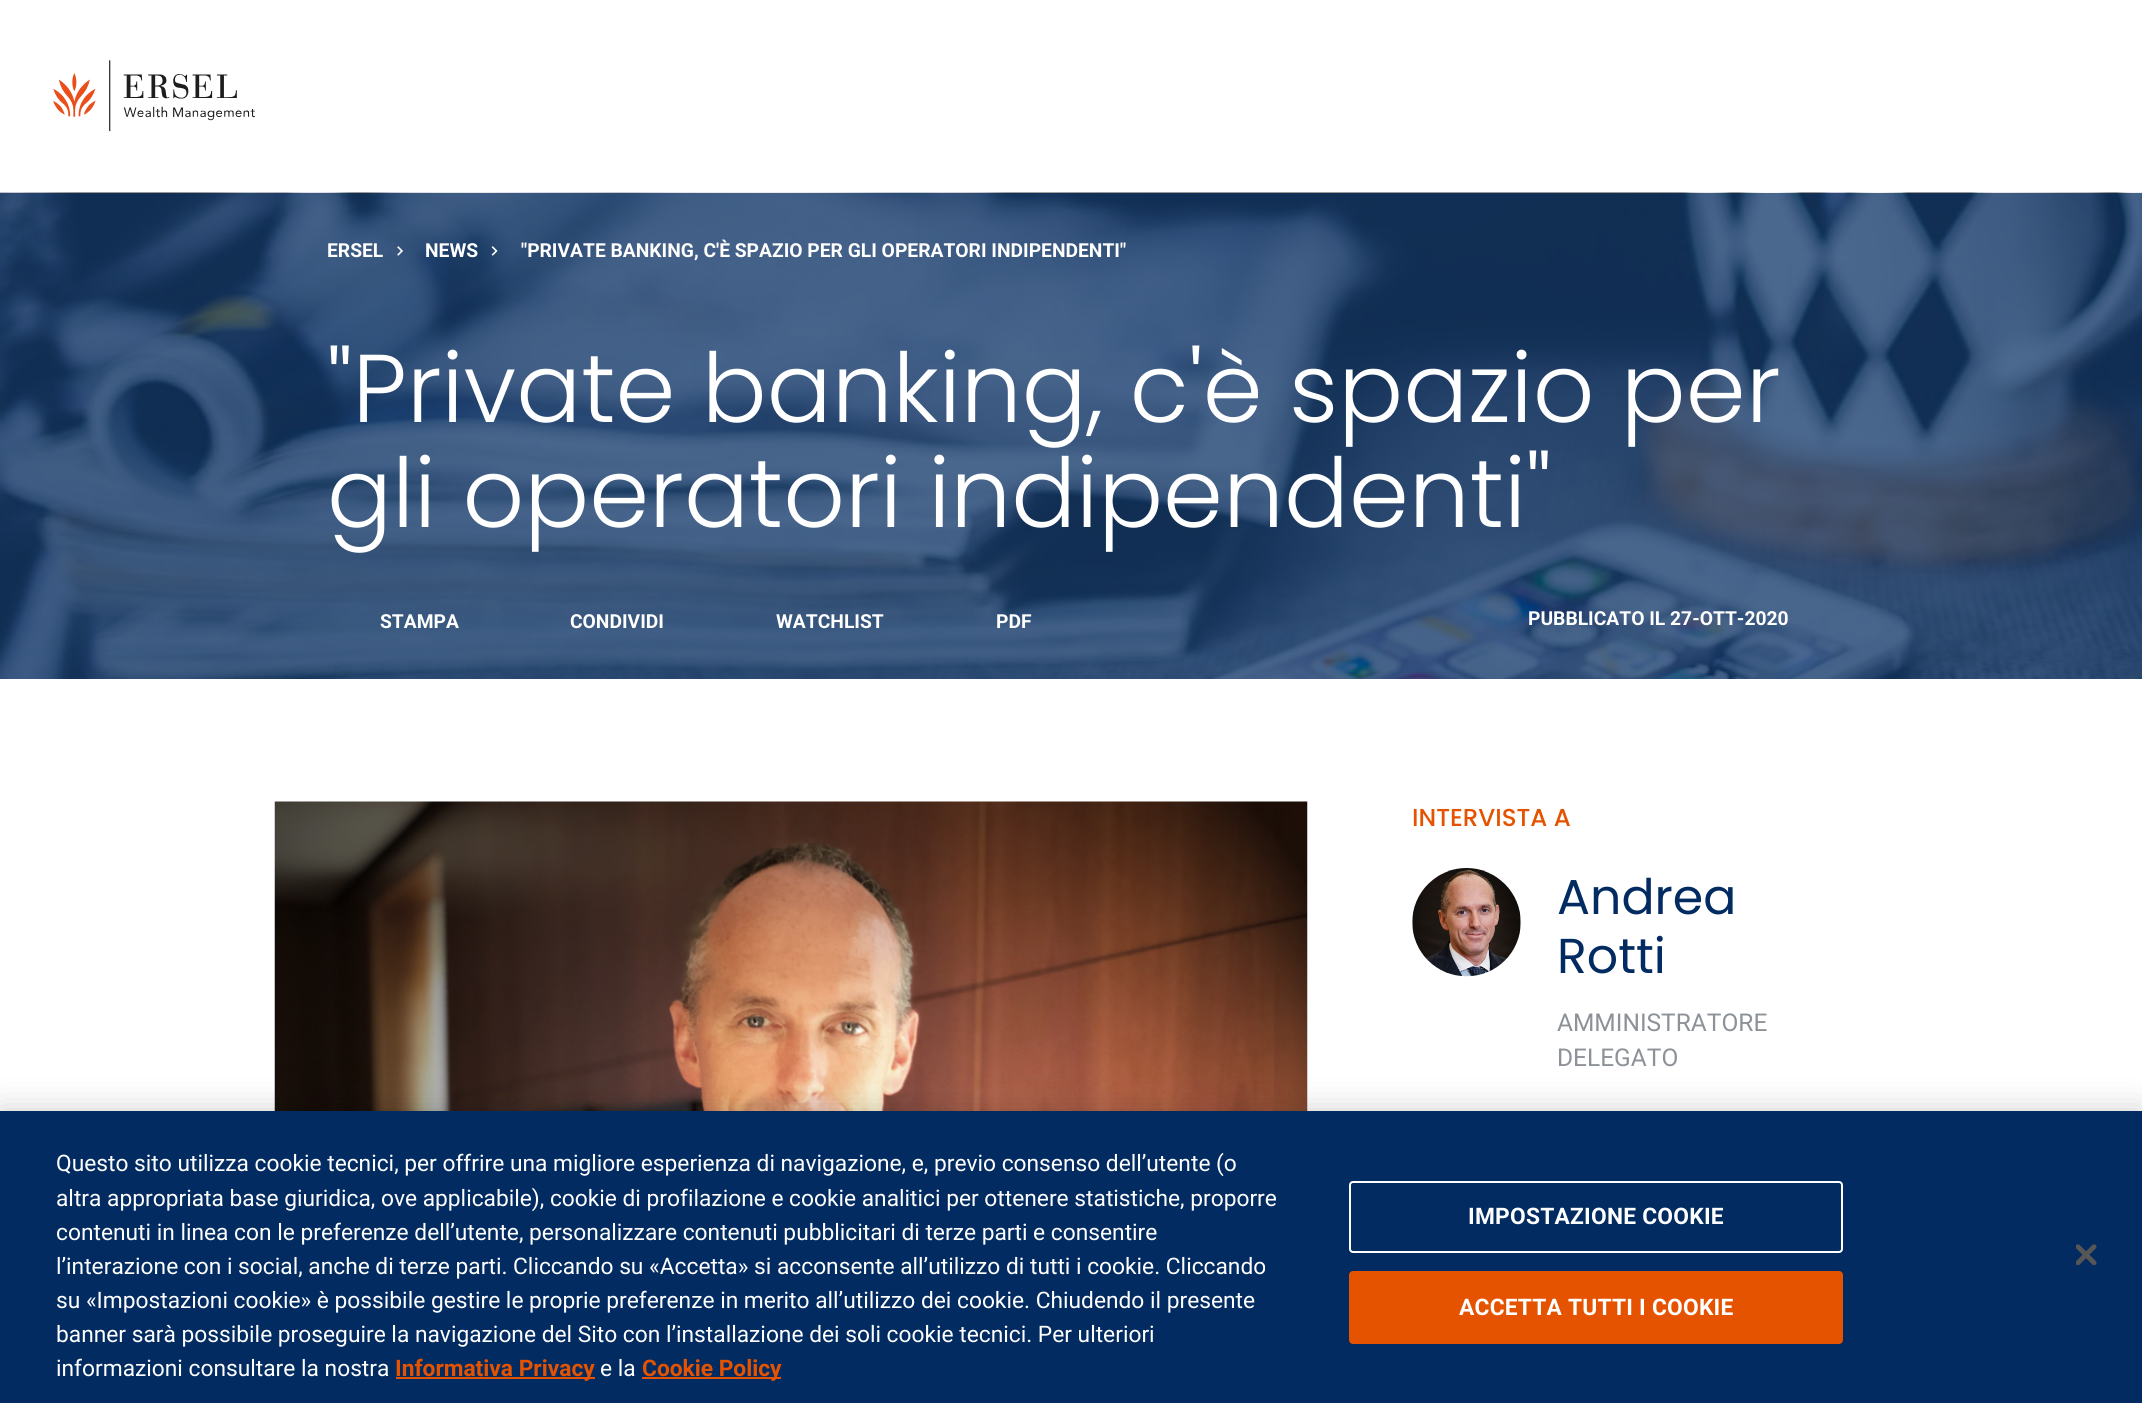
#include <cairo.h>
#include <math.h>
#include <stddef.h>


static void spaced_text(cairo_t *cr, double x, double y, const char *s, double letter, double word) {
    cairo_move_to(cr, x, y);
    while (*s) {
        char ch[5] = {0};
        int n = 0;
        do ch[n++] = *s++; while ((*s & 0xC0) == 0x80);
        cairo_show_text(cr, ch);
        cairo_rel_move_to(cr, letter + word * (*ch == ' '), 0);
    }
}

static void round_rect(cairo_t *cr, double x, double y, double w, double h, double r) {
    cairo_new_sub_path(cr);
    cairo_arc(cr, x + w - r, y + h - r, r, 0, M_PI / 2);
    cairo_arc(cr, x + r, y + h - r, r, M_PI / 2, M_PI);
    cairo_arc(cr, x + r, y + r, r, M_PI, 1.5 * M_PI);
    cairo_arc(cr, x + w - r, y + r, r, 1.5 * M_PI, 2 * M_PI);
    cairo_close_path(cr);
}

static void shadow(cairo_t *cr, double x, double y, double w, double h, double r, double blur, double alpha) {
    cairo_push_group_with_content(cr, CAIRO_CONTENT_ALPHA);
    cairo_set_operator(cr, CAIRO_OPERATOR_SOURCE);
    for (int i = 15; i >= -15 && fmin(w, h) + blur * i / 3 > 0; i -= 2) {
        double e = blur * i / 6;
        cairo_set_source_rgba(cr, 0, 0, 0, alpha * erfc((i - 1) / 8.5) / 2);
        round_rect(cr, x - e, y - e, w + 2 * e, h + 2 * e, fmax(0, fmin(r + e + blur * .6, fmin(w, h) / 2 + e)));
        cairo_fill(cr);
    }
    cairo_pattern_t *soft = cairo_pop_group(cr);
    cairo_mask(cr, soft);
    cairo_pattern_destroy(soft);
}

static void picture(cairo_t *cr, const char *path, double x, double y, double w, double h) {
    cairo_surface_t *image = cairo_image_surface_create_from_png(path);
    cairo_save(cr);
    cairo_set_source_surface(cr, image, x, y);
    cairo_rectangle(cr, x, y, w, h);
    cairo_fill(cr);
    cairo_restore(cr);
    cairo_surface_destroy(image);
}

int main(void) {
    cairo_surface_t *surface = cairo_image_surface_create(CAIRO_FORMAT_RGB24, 2142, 1403);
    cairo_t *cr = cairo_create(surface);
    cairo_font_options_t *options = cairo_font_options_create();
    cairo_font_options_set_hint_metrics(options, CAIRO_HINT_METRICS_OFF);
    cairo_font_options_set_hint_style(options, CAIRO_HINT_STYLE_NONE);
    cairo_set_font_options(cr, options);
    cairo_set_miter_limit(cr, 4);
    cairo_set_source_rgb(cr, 1, 1, 1);
    cairo_paint(cr);
    picture(cr, "img1.png", 53, 60, 202, 72);
    picture(cr, "img2.png", 0, 192, 2142, 487);
    cairo_select_font_face(cr, "Roboto", CAIRO_FONT_SLANT_NORMAL, CAIRO_FONT_WEIGHT_BOLD);
    cairo_set_font_size(cr, 19.25);
    cairo_set_source_rgb(cr, 1, 1, 1);
    cairo_move_to(cr, 327, 257);
    cairo_show_text(cr, "ERSEL");
    picture(cr, "img3.png", 397, 246, 6, 10);
    cairo_move_to(cr, 425, 257);
    cairo_show_text(cr, "NEWS");
    picture(cr, "img4.png", 491, 246, 7, 10);
    cairo_move_to(cr, 521, 257);
    cairo_show_text(cr, "\"PRIVATE BANKING, C'È SPAZIO PER GLI OPERATORI INDIPENDENTI\"");
    cairo_select_font_face(cr, "Poppins Light", CAIRO_FONT_SLANT_NORMAL, CAIRO_FONT_WEIGHT_NORMAL);
    cairo_set_font_size(cr, 96.25);
    cairo_move_to(cr, 327, 422);
    cairo_show_text(cr, "\"Private banking, c'è spazio per");
    cairo_move_to(cr, 327, 527);
    cairo_show_text(cr, "gli operatori indipendenti\"");
    cairo_select_font_face(cr, "Roboto", CAIRO_FONT_SLANT_NORMAL, CAIRO_FONT_WEIGHT_BOLD);
    cairo_set_font_size(cr, 19.25);
    cairo_move_to(cr, 380, 628);
    cairo_show_text(cr, "STAMPA");
    cairo_move_to(cr, 570, 628);
    cairo_show_text(cr, "CONDIVIDI");
    cairo_move_to(cr, 776, 628);
    cairo_show_text(cr, "WATCHLIST");
    cairo_move_to(cr, 996, 628);
    cairo_show_text(cr, "PDF");
    cairo_move_to(cr, 1528, 625);
    cairo_show_text(cr, "PUBBLICATO IL 27-OTT-2020");
    picture(cr, "img5.png", 274, 801, 1034, 310);
    cairo_select_font_face(cr, "Poppins Medium", CAIRO_FONT_SLANT_NORMAL, CAIRO_FONT_WEIGHT_NORMAL);
    cairo_set_font_size(cr, 24.5);
    cairo_set_source_rgb(cr, 0.902, 0.325, 0);
    cairo_move_to(cr, 1412, 826);
    cairo_show_text(cr, "INTERVISTA A");
    picture(cr, "img6.png", 1412, 868, 109, 109);
    cairo_select_font_face(cr, "Poppins", CAIRO_FONT_SLANT_NORMAL, CAIRO_FONT_WEIGHT_NORMAL);
    cairo_set_font_size(cr, 49);
    cairo_set_source_rgb(cr, 0.008, 0.169, 0.38);
    cairo_move_to(cr, 1557, 914);
    cairo_show_text(cr, "Andrea");
    cairo_move_to(cr, 1557, 973);
    cairo_show_text(cr, "Rotti");
    cairo_select_font_face(cr, "Roboto", CAIRO_FONT_SLANT_NORMAL, CAIRO_FONT_WEIGHT_NORMAL);
    cairo_set_font_size(cr, 24.5);
    cairo_set_source_rgb(cr, 0.553, 0.573, 0.6);
    cairo_move_to(cr, 1557, 1031);
    cairo_show_text(cr, "AMMINISTRATORE");
    cairo_move_to(cr, 1557, 1066);
    cairo_show_text(cr, "DELEGATO");
    cairo_set_source_rgb(cr, 0, 0, 0);
    shadow(cr, 0, 1111, 2142, 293, 0, 16, 0.2);
    cairo_set_source_rgb(cr, 0.008, 0.169, 0.38);
    cairo_rectangle(cr, 0, 1111, 2142, 292);
    cairo_fill(cr);
    cairo_set_font_size(cr, 22.75);
    cairo_set_source_rgb(cr, 1, 1, 1);
    cairo_move_to(cr, 56, 1171);
    cairo_show_text(cr, "Questo sito utilizza cookie tecnici, per offrire una migliore esperienza di navigazione, e, previo consenso dell’utente (o");
    cairo_move_to(cr, 56, 1206);
    cairo_show_text(cr, "altra appropriata base giuridica, ove applicabile), cookie di profilazione e cookie analitici per ottenere statistiche, proporre");
    cairo_move_to(cr, 56, 1240);
    cairo_show_text(cr, "contenuti in linea con le preferenze dell’utente, personalizzare contenuti pubblicitari di terze parti e consentire");
    cairo_move_to(cr, 56, 1274);
    cairo_show_text(cr, "l’interazione con i social, anche di terze parti. Cliccando su «Accetta» si acconsente all’utilizzo di tutti i cookie. Cliccando");
    cairo_move_to(cr, 56, 1308);
    cairo_show_text(cr, "su «Impostazioni cookie» è possibile gestire le proprie preferenze in merito all’utilizzo dei cookie. Chiudendo il presente");
    cairo_move_to(cr, 56, 1342);
    cairo_show_text(cr, "banner sarà possibile proseguire la navigazione del Sito con l’installazione dei soli cookie tecnici. Per ulteriori");
    cairo_move_to(cr, 56, 1376);
    cairo_show_text(cr, "informazioni consultare la nostra");
    cairo_set_source_rgb(cr, 0.902, 0.325, 0);
    cairo_rectangle(cr, 396, 1377, 199, 2);
    cairo_fill(cr);
    cairo_select_font_face(cr, "Roboto", CAIRO_FONT_SLANT_NORMAL, CAIRO_FONT_WEIGHT_BOLD);
    cairo_move_to(cr, 395, 1376);
    cairo_show_text(cr, "Informativa Privacy");
    cairo_select_font_face(cr, "Roboto", CAIRO_FONT_SLANT_NORMAL, CAIRO_FONT_WEIGHT_NORMAL);
    cairo_set_source_rgb(cr, 1, 1, 1);
    cairo_move_to(cr, 600, 1376);
    cairo_show_text(cr, "e la");
    cairo_set_source_rgb(cr, 0.902, 0.325, 0);
    cairo_rectangle(cr, 642, 1377, 139, 2);
    cairo_fill(cr);
    cairo_select_font_face(cr, "Roboto", CAIRO_FONT_SLANT_NORMAL, CAIRO_FONT_WEIGHT_BOLD);
    cairo_move_to(cr, 642, 1376);
    cairo_show_text(cr, "Cookie Policy");
    round_rect(cr, 1350, 1182, 492, 70, 3);
    cairo_set_source_rgb(cr, 1, 1, 1);
    cairo_stroke(cr);
    spaced_text(cr, 1468, 1224, "IMPOSTAZIONE COOKIE", 0.25, 0);
    cairo_set_source_rgb(cr, 0.902, 0.325, 0);
    round_rect(cr, 1350, 1272, 492, 71, 3);
    cairo_fill_preserve(cr);
    cairo_stroke(cr);
    cairo_set_source_rgb(cr, 1, 1, 1);
    spaced_text(cr, 1459, 1315, "ACCETTA TUTTI I COOKIE", 0.25, 0);
    picture(cr, "img7.png", 2076, 1244, 21, 21);
    cairo_surface_write_to_png(surface, "page.png");
    cairo_font_options_destroy(options);
    cairo_destroy(cr);
    cairo_surface_destroy(surface);
    return 0;
}
